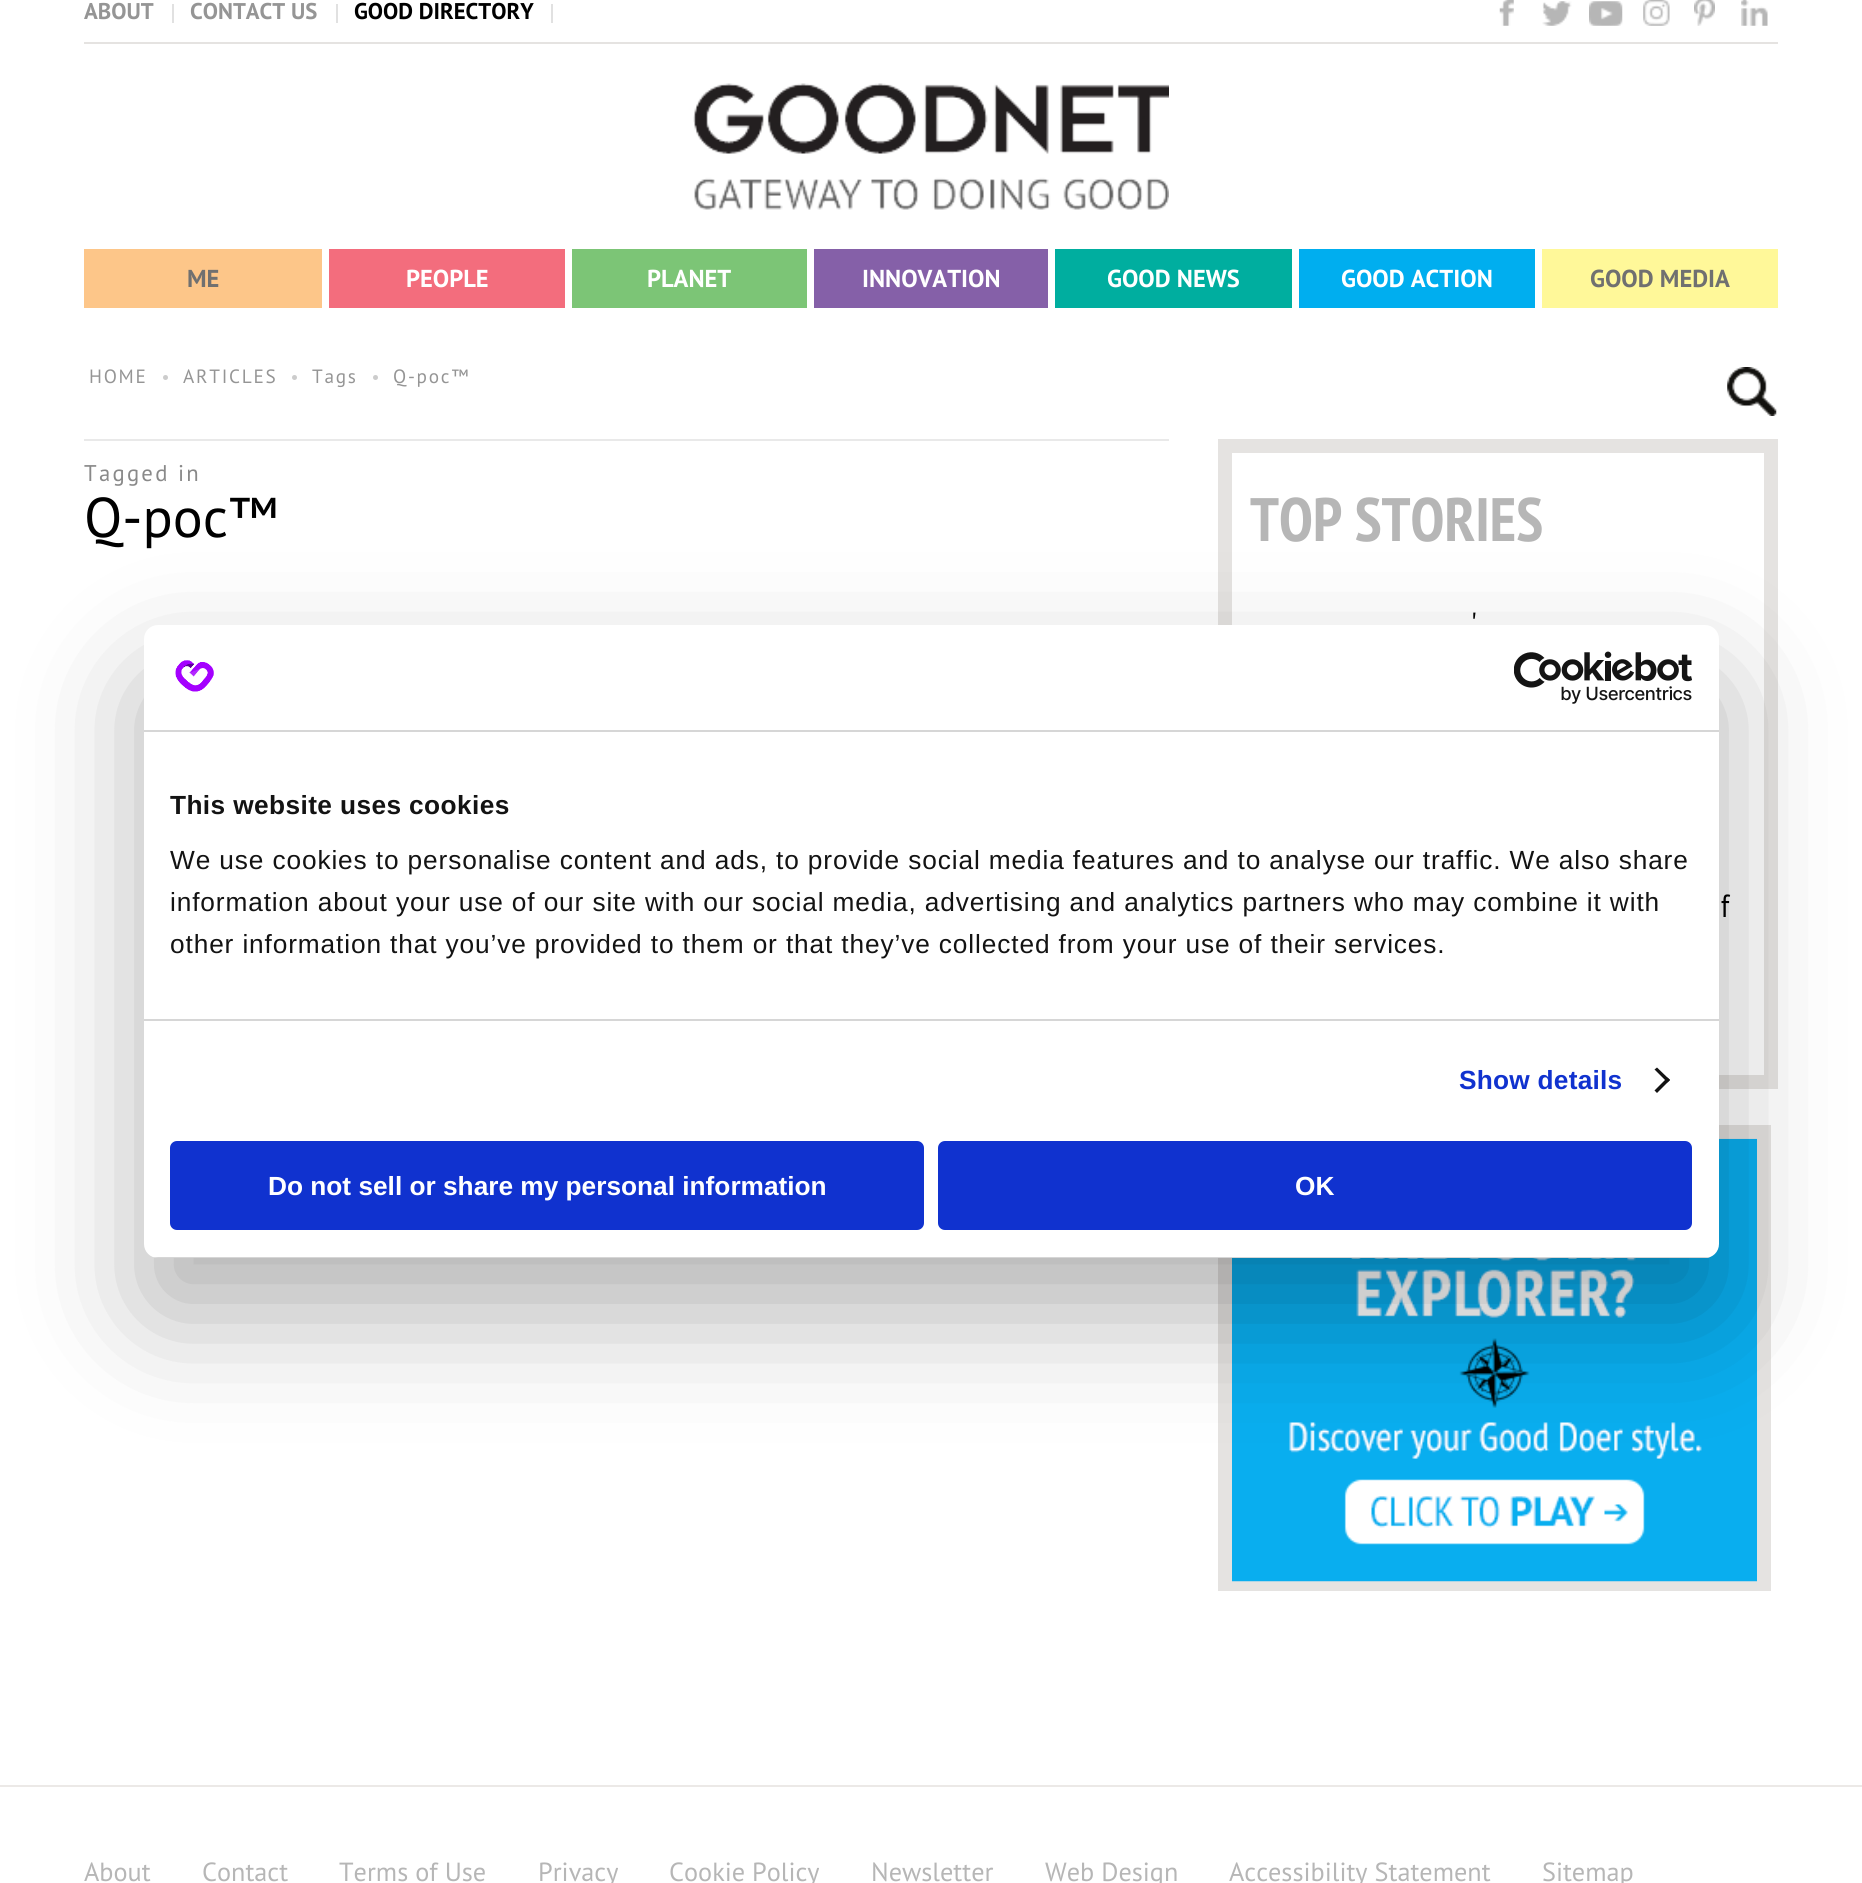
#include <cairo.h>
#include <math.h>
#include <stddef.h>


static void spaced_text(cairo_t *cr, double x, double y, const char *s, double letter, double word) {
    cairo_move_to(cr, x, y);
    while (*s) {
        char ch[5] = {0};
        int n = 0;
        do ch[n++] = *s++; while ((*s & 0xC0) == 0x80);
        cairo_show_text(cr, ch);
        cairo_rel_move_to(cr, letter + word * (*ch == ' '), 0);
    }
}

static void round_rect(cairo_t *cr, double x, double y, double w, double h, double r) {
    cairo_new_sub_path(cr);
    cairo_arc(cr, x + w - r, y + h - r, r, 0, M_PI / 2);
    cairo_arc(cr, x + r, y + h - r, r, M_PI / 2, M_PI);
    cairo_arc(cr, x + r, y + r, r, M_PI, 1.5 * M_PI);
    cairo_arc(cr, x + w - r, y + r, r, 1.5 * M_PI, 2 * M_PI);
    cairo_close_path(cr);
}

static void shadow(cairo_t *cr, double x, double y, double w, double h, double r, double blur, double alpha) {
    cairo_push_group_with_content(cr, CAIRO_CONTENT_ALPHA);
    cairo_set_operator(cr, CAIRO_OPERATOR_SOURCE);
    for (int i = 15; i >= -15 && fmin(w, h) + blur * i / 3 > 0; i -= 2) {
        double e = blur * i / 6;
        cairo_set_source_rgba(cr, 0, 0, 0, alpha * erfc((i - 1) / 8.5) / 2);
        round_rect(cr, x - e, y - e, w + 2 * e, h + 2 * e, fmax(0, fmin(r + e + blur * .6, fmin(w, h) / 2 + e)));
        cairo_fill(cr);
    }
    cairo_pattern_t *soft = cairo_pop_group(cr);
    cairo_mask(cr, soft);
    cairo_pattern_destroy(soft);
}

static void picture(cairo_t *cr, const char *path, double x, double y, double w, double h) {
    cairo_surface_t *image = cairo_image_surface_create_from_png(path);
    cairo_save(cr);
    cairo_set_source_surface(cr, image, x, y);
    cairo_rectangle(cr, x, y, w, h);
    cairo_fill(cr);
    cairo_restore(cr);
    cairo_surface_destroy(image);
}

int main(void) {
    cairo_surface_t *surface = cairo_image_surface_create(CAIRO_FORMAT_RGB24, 1862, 1883);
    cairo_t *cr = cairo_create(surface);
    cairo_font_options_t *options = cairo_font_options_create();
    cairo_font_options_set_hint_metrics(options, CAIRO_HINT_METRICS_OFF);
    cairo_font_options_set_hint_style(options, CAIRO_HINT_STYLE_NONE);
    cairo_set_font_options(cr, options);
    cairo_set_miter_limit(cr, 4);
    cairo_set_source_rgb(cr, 1, 1, 1);
    cairo_paint(cr);
    cairo_select_font_face(cr, "PT Sans", CAIRO_FONT_SLANT_NORMAL, CAIRO_FONT_WEIGHT_BOLD);
    cairo_set_font_size(cr, 22.75);
    cairo_set_source_rgb(cr, 0.584, 0.584, 0.584);
    cairo_move_to(cr, 84, 19);
    cairo_show_text(cr, "ABOUT");
    cairo_set_source_rgb(cr, 0.882, 0.882, 0.882);
    cairo_rectangle(cr, 172, 4, 2, 19);
    cairo_fill(cr);
    cairo_set_source_rgb(cr, 0.584, 0.584, 0.584);
    cairo_move_to(cr, 190, 19);
    cairo_show_text(cr, "CONTACT US");
    cairo_set_source_rgb(cr, 0.882, 0.882, 0.882);
    cairo_rectangle(cr, 336, 4, 2, 19);
    cairo_fill(cr);
    cairo_set_source_rgb(cr, 0, 0, 0);
    cairo_move_to(cr, 354, 19);
    cairo_show_text(cr, "GOOD DIRECTORY");
    cairo_set_source_rgb(cr, 0.882, 0.882, 0.882);
    cairo_rectangle(cr, 551, 4, 2, 19);
    cairo_fill(cr);
    picture(cr, "img1.png", 1499, 0, 15, 26);
    picture(cr, "img2.png", 1542, 1, 30, 25);
    picture(cr, "img3.png", 1589, 1, 34, 25);
    picture(cr, "img4.png", 1643, 0, 27, 26);
    picture(cr, "img5.png", 1694, 0, 21, 26);
    picture(cr, "img6.png", 1741, 0, 27, 26);
    cairo_set_source_rgb(cr, 0.898, 0.89, 0.882);
    cairo_rectangle(cr, 84, 42, 1694, 2);
    cairo_fill(cr);
    picture(cr, "img7.png", 693, 83, 476, 127);
    cairo_set_source_rgb(cr, 0.992, 0.776, 0.537);
    cairo_rectangle(cr, 84, 249, 238, 59);
    cairo_fill(cr);
    cairo_set_font_size(cr, 24.5);
    cairo_set_source_rgb(cr, 0.439, 0.439, 0.439);
    cairo_move_to(cr, 187, 287);
    cairo_show_text(cr, "ME");
    cairo_set_source_rgb(cr, 0.953, 0.427, 0.49);
    cairo_rectangle(cr, 329, 249, 236, 59);
    cairo_fill(cr);
    cairo_set_source_rgb(cr, 1, 1, 1);
    cairo_move_to(cr, 406, 287);
    cairo_show_text(cr, "PEOPLE");
    cairo_set_source_rgb(cr, 0.486, 0.773, 0.463);
    cairo_rectangle(cr, 572, 249, 235, 59);
    cairo_fill(cr);
    cairo_set_source_rgb(cr, 1, 1, 1);
    cairo_move_to(cr, 647, 287);
    cairo_show_text(cr, "PLANET");
    cairo_set_source_rgb(cr, 0.522, 0.376, 0.659);
    cairo_rectangle(cr, 814, 249, 234, 59);
    cairo_fill(cr);
    cairo_set_source_rgb(cr, 1, 1, 1);
    cairo_move_to(cr, 862, 287);
    cairo_show_text(cr, "INNOVATION");
    cairo_set_source_rgb(cr, 0, 0.682, 0.624);
    cairo_rectangle(cr, 1055, 249, 237, 59);
    cairo_fill(cr);
    cairo_set_source_rgb(cr, 1, 1, 1);
    cairo_move_to(cr, 1107, 287);
    cairo_show_text(cr, "GOOD NEWS");
    cairo_set_source_rgb(cr, 0, 0.682, 0.937);
    cairo_rectangle(cr, 1299, 249, 236, 59);
    cairo_fill(cr);
    cairo_set_source_rgb(cr, 1, 1, 1);
    cairo_move_to(cr, 1341, 287);
    cairo_show_text(cr, "GOOD ACTION");
    cairo_set_source_rgb(cr, 1, 0.969, 0.6);
    cairo_rectangle(cr, 1542, 249, 236, 59);
    cairo_fill(cr);
    cairo_set_source_rgb(cr, 0.439, 0.439, 0.439);
    cairo_move_to(cr, 1590, 287);
    cairo_show_text(cr, "GOOD MEDIA");
    picture(cr, "img8.png", 1727, 367, 50, 49);
    cairo_select_font_face(cr, "PT Sans", CAIRO_FONT_SLANT_NORMAL, CAIRO_FONT_WEIGHT_NORMAL);
    cairo_set_font_size(cr, 19.25);
    cairo_set_source_rgb(cr, 0.584, 0.584, 0.584);
    spaced_text(cr, 89, 383, "HOME", 1.75, 0);
    cairo_set_source_rgb(cr, 0.8, 0.8, 0.8);
    cairo_new_path(cr);
    cairo_arc(cr, 165.5, 377.5, 2.5, 0, 2 * M_PI);
    cairo_fill(cr);
    cairo_set_source_rgb(cr, 0.584, 0.584, 0.584);
    spaced_text(cr, 183, 383, "ARTICLES", 1.75, 0);
    cairo_set_source_rgb(cr, 0.8, 0.8, 0.8);
    cairo_new_path(cr);
    cairo_arc(cr, 294.5, 377.5, 2.5, 0, 2 * M_PI);
    cairo_fill(cr);
    cairo_set_source_rgb(cr, 0.584, 0.584, 0.584);
    spaced_text(cr, 312, 383, "Tags", 1.75, 0);
    cairo_set_source_rgb(cr, 0.8, 0.8, 0.8);
    cairo_new_path(cr);
    cairo_arc(cr, 375.5, 377.5, 2.5, 0, 2 * M_PI);
    cairo_fill(cr);
    cairo_set_source_rgb(cr, 0.584, 0.584, 0.584);
    spaced_text(cr, 393, 383, "Q-poc™", 1.75, 0);
    cairo_set_source_rgb(cr, 0.914, 0.914, 0.914);
    cairo_rectangle(cr, 84, 439, 1085, 2);
    cairo_fill(cr);
    cairo_set_font_size(cr, 22.75);
    cairo_set_source_rgb(cr, 0.537, 0.537, 0.537);
    spaced_text(cr, 84, 481, "Tagged in", 2.25, 0);
    cairo_set_font_size(cr, 56);
    cairo_set_source_rgb(cr, 0, 0, 0);
    cairo_move_to(cr, 84, 537);
    cairo_show_text(cr, "Q-poc™");
    cairo_rectangle(cr, 1225, 446, 546, 636);
    cairo_set_source_rgb(cr, 0.898, 0.89, 0.882);
    cairo_set_line_width(cr, 14);
    cairo_stroke(cr);
    cairo_select_font_face(cr, "PT Sans Narrow", CAIRO_FONT_SLANT_NORMAL, CAIRO_FONT_WEIGHT_BOLD);
    cairo_set_font_size(cr, 61.25);
    cairo_set_source_rgb(cr, 0.714, 0.714, 0.714);
    cairo_move_to(cr, 1250, 541);
    cairo_show_text(cr, "TOP STORIES");
    cairo_select_font_face(cr, "PT Sans Narrow", CAIRO_FONT_SLANT_NORMAL, CAIRO_FONT_WEIGHT_NORMAL);
    cairo_set_font_size(cr, 32);
    cairo_set_source_rgb(cr, 0, 0, 0);
    cairo_move_to(cr, 1471, 635);
    cairo_show_text(cr, "'");
    cairo_move_to(cr, 1721, 917);
    cairo_show_text(cr, "f");
    cairo_rectangle(cr, 1225, 1132, 539, 452);
    cairo_set_source_rgb(cr, 0.898, 0.89, 0.882);
    cairo_stroke(cr);
    picture(cr, "img9.png", 1232, 1138, 525, 444);
    cairo_set_source_rgb(cr, 0, 0, 0);
    shadow(cr, 144, 681, 1575, 633, 14, 59.5, 0.3);
    cairo_set_source_rgb(cr, 1, 1, 1);
    round_rect(cr, 144, 625, 1575, 633, 14);
    cairo_fill(cr);
    cairo_set_source_rgb(cr, 0.839, 0.839, 0.839);
    cairo_rectangle(cr, 144, 730, 1575, 2);
    cairo_fill(cr);
    picture(cr, "img10.png", 175, 660, 39, 32);
    picture(cr, "img11.png", 1514, 651, 178, 53);
    cairo_rectangle(cr, 144, 1019, 1575, 2);
    cairo_fill(cr);
    cairo_select_font_face(cr, "Liberation Sans", CAIRO_FONT_SLANT_NORMAL, CAIRO_FONT_WEIGHT_BOLD);
    cairo_set_font_size(cr, 26.25);
    cairo_set_source_rgb(cr, 0.078, 0.078, 0.078);
    spaced_text(cr, 170, 814, "This website uses cookies", 0.4, 0);
    cairo_select_font_face(cr, "Liberation Sans", CAIRO_FONT_SLANT_NORMAL, CAIRO_FONT_WEIGHT_NORMAL);
    spaced_text(cr, 170, 869, "We use cookies to personalise content and ads, to provide social media features and to analyse our traffic. We also share", 0.88, 0);
    spaced_text(cr, 170, 911, "information about your use of our site with our social media, advertising and analytics partners who may combine it with", 0.88, 0);
    spaced_text(cr, 170, 953, "other information that you’ve provided to them or that they’ve collected from your use of their services.", 0.88, 0);
    cairo_select_font_face(cr, "Liberation Sans", CAIRO_FONT_SLANT_NORMAL, CAIRO_FONT_WEIGHT_BOLD);
    cairo_set_source_rgb(cr, 0.063, 0.196, 0.812);
    spaced_text(cr, 1459, 1089, "Show details", 0.25, 0);
    cairo_set_source_rgb(cr, 0.078, 0.078, 0.078);
    cairo_new_path(cr);
    cairo_move_to(cr, 1657, 1067.5);
    cairo_line_to(cr, 1670, 1080);
    cairo_line_to(cr, 1667.5, 1082.5);
    cairo_line_to(cr, 1654.5, 1069.5);
    cairo_close_path(cr);
    cairo_fill(cr);
    cairo_new_path(cr);
    cairo_move_to(cr, 1667.5, 1077.5);
    cairo_line_to(cr, 1670, 1080);
    cairo_line_to(cr, 1657, 1093);
    cairo_line_to(cr, 1654.5, 1090.5);
    cairo_close_path(cr);
    cairo_fill(cr);
    cairo_save(cr);
    round_rect(cr, 144, 625, 1575, 633, 14);
    cairo_clip(cr);
    cairo_set_source_rgb(cr, 0.839, 0.839, 0.839);
    cairo_rectangle(cr, 153, 1257, 1557, 1);
    cairo_fill(cr);
    cairo_restore(cr);
    cairo_set_source_rgb(cr, 0.063, 0.196, 0.812);
    round_rect(cr, 172, 1143, 750, 85, 5);
    cairo_fill_preserve(cr);
    cairo_set_line_width(cr, 4);
    cairo_stroke(cr);
    cairo_set_source_rgb(cr, 1, 1, 1);
    cairo_move_to(cr, 268, 1195);
    cairo_show_text(cr, "Do not sell or share my personal information");
    cairo_set_source_rgb(cr, 0.063, 0.196, 0.812);
    round_rect(cr, 940, 1143, 750, 85, 5);
    cairo_fill_preserve(cr);
    cairo_stroke(cr);
    cairo_set_source_rgb(cr, 1, 1, 1);
    cairo_move_to(cr, 1295, 1195);
    cairo_show_text(cr, "OK");
    cairo_set_source_rgb(cr, 0.922, 0.914, 0.906);
    cairo_rectangle(cr, 0, 1785, 1862, 2);
    cairo_fill(cr);
    cairo_select_font_face(cr, "PT Sans", CAIRO_FONT_SLANT_NORMAL, CAIRO_FONT_WEIGHT_NORMAL);
    cairo_set_source_rgb(cr, 0.714, 0.714, 0.714);
    cairo_move_to(cr, 84, 1881);
    cairo_show_text(cr, "About");
    cairo_move_to(cr, 202, 1881);
    cairo_show_text(cr, "Contact");
    cairo_move_to(cr, 339, 1881);
    cairo_show_text(cr, "Terms of Use");
    cairo_move_to(cr, 538, 1881);
    cairo_show_text(cr, "Privacy");
    cairo_move_to(cr, 669, 1881);
    cairo_show_text(cr, "Cookie Policy");
    cairo_move_to(cr, 871, 1881);
    cairo_show_text(cr, "Newsletter");
    cairo_move_to(cr, 1045, 1881);
    cairo_show_text(cr, "Web Design");
    cairo_move_to(cr, 1229, 1881);
    cairo_show_text(cr, "Accessibility Statement");
    cairo_move_to(cr, 1542, 1881);
    cairo_show_text(cr, "Sitemap");
    cairo_surface_write_to_png(surface, "page.png");
    cairo_font_options_destroy(options);
    cairo_destroy(cr);
    cairo_surface_destroy(surface);
    return 0;
}
